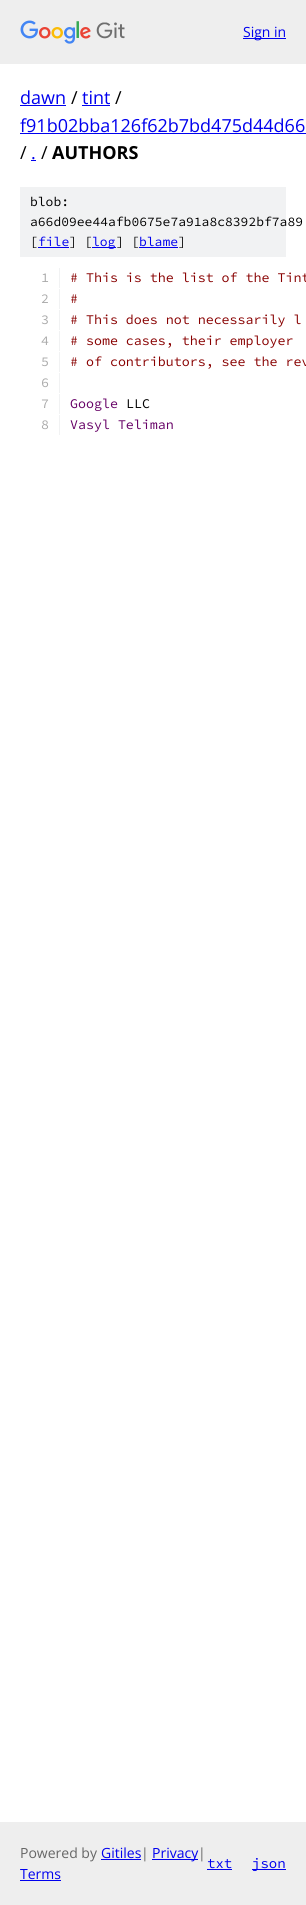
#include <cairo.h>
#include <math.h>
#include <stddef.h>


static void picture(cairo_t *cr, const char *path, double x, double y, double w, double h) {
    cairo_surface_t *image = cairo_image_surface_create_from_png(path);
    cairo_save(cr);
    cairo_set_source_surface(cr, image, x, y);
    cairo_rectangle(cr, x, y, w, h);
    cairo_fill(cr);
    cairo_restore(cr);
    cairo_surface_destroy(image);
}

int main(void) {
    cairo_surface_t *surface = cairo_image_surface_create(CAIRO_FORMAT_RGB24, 306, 1905);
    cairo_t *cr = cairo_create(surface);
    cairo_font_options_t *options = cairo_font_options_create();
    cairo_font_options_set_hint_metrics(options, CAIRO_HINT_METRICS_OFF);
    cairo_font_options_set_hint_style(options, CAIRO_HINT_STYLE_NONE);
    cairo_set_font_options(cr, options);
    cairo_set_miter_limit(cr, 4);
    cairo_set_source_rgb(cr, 1, 1, 1);
    cairo_paint(cr);
    cairo_set_source_rgb(cr, 0.933, 0.933, 0.933);
    cairo_rectangle(cr, 0, 0, 306, 64);
    cairo_fill(cr);
    picture(cr, "img1.png", 20, 20, 105, 24);
    cairo_set_source_rgb(cr, 0, 0, 0.933);
    cairo_rectangle(cr, 243, 38, 43, 1);
    cairo_fill(cr);
    cairo_select_font_face(cr, "Open Sans", CAIRO_FONT_SLANT_NORMAL, CAIRO_FONT_WEIGHT_NORMAL);
    cairo_set_font_size(cr, 14);
    cairo_move_to(cr, 243, 37);
    cairo_show_text(cr, "Sign in");
    cairo_set_font_size(cr, 18);
    cairo_move_to(cr, 20, 104);
    cairo_show_text(cr, "dawn");
    cairo_rectangle(cr, 20, 105, 46, 1);
    cairo_fill(cr);
    cairo_set_source_rgb(cr, 0, 0, 0);
    cairo_move_to(cr, 71, 104);
    cairo_show_text(cr, "/");
    cairo_set_source_rgb(cr, 0, 0, 0.933);
    cairo_move_to(cr, 82, 104);
    cairo_show_text(cr, "tint");
    cairo_rectangle(cr, 82, 105, 28, 1);
    cairo_fill(cr);
    cairo_set_source_rgb(cr, 0, 0, 0);
    cairo_move_to(cr, 115, 104);
    cairo_show_text(cr, "/");
    cairo_set_source_rgb(cr, 0, 0, 0.933);
    cairo_move_to(cr, 20, 132);
    cairo_show_text(cr, "f91b02bba126f62b7bd475d44d66");
    cairo_rectangle(cr, 20, 133, 286, 1);
    cairo_fill(cr);
    cairo_set_source_rgb(cr, 0, 0, 0);
    cairo_move_to(cr, 20, 159);
    cairo_show_text(cr, "/");
    cairo_set_source_rgb(cr, 0, 0, 0.933);
    cairo_move_to(cr, 31, 159);
    cairo_show_text(cr, ".");
    cairo_rectangle(cr, 31, 160, 5, 1);
    cairo_fill(cr);
    cairo_set_source_rgb(cr, 0, 0, 0);
    cairo_move_to(cr, 41, 159);
    cairo_show_text(cr, "/");
    cairo_select_font_face(cr, "Open Sans", CAIRO_FONT_SLANT_NORMAL, CAIRO_FONT_WEIGHT_BOLD);
    cairo_move_to(cr, 52, 159);
    cairo_show_text(cr, "AUTHORS");
    cairo_set_source_rgb(cr, 0.945, 0.949, 0.953);
    cairo_rectangle(cr, 20, 187, 266, 70);
    cairo_fill(cr);
    cairo_select_font_face(cr, "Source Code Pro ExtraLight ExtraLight", CAIRO_FONT_SLANT_NORMAL, CAIRO_FONT_WEIGHT_NORMAL);
    cairo_set_font_size(cr, 13);
    cairo_set_source_rgb(cr, 0, 0, 0);
    cairo_move_to(cr, 30, 206);
    cairo_show_text(cr, "blob:");
    cairo_move_to(cr, 30, 226);
    cairo_show_text(cr, "a66d09ee44afb0675e7a91a8c8392bf7a89");
    cairo_move_to(cr, 30, 246);
    cairo_show_text(cr, "[");
    cairo_set_source_rgb(cr, 0, 0, 0.933);
    cairo_move_to(cr, 38, 246);
    cairo_show_text(cr, "file");
    cairo_rectangle(cr, 38, 247, 31, 1);
    cairo_fill(cr);
    cairo_set_source_rgb(cr, 0, 0, 0);
    cairo_move_to(cr, 69, 246);
    cairo_show_text(cr, "] [");
    cairo_set_source_rgb(cr, 0, 0, 0.933);
    cairo_rectangle(cr, 92, 247, 24, 1);
    cairo_fill(cr);
    cairo_move_to(cr, 92, 246);
    cairo_show_text(cr, "log");
    cairo_set_source_rgb(cr, 0, 0, 0);
    cairo_move_to(cr, 116, 246);
    cairo_show_text(cr, "] [");
    cairo_set_source_rgb(cr, 0, 0, 0.933);
    cairo_move_to(cr, 139, 246);
    cairo_show_text(cr, "blame");
    cairo_rectangle(cr, 139, 247, 39, 1);
    cairo_fill(cr);
    cairo_set_source_rgb(cr, 0, 0, 0);
    cairo_move_to(cr, 178, 246);
    cairo_show_text(cr, "]");
    cairo_set_source_rgb(cr, 0.945, 0.949, 0.953);
    cairo_rectangle(cr, 59, 268, 1, 20);
    cairo_fill(cr);
    cairo_set_font_size(cr, 13.3);
    cairo_set_source_rgb(cr, 0.667, 0.667, 0.667);
    cairo_move_to(cr, 41, 282);
    cairo_show_text(cr, "1");
    cairo_set_source_rgb(cr, 0.533, 0, 0);
    cairo_move_to(cr, 70, 282);
    cairo_show_text(cr, "# This is the list of the Tint");
    cairo_set_source_rgb(cr, 0.945, 0.949, 0.953);
    cairo_rectangle(cr, 59, 289, 1, 20);
    cairo_fill(cr);
    cairo_set_source_rgb(cr, 0.667, 0.667, 0.667);
    cairo_move_to(cr, 41, 303);
    cairo_show_text(cr, "2");
    cairo_set_source_rgb(cr, 0.533, 0, 0);
    cairo_move_to(cr, 70, 303);
    cairo_show_text(cr, "#");
    cairo_set_source_rgb(cr, 0.945, 0.949, 0.953);
    cairo_rectangle(cr, 59, 310, 1, 20);
    cairo_fill(cr);
    cairo_set_source_rgb(cr, 0.667, 0.667, 0.667);
    cairo_move_to(cr, 41, 324);
    cairo_show_text(cr, "3");
    cairo_set_source_rgb(cr, 0.533, 0, 0);
    cairo_move_to(cr, 70, 324);
    cairo_show_text(cr, "# This does not necessarily l");
    cairo_set_source_rgb(cr, 0.945, 0.949, 0.953);
    cairo_rectangle(cr, 59, 331, 1, 20);
    cairo_fill(cr);
    cairo_set_source_rgb(cr, 0.667, 0.667, 0.667);
    cairo_move_to(cr, 41, 345);
    cairo_show_text(cr, "4");
    cairo_set_source_rgb(cr, 0.533, 0, 0);
    cairo_move_to(cr, 70, 345);
    cairo_show_text(cr, "# some cases, their employer");
    cairo_set_source_rgb(cr, 0.945, 0.949, 0.953);
    cairo_rectangle(cr, 59, 352, 1, 20);
    cairo_fill(cr);
    cairo_set_source_rgb(cr, 0.667, 0.667, 0.667);
    cairo_move_to(cr, 41, 366);
    cairo_show_text(cr, "5");
    cairo_set_source_rgb(cr, 0.533, 0, 0);
    cairo_move_to(cr, 70, 366);
    cairo_show_text(cr, "# of contributors, see the rev");
    cairo_set_source_rgb(cr, 0.945, 0.949, 0.953);
    cairo_rectangle(cr, 59, 373, 1, 20);
    cairo_fill(cr);
    cairo_set_source_rgb(cr, 0.667, 0.667, 0.667);
    cairo_move_to(cr, 41, 387);
    cairo_show_text(cr, "6");
    cairo_set_source_rgb(cr, 0.945, 0.949, 0.953);
    cairo_rectangle(cr, 59, 394, 1, 20);
    cairo_fill(cr);
    cairo_set_source_rgb(cr, 0.667, 0.667, 0.667);
    cairo_move_to(cr, 41, 408);
    cairo_show_text(cr, "7");
    cairo_set_source_rgb(cr, 0.4, 0, 0.4);
    cairo_move_to(cr, 70, 408);
    cairo_show_text(cr, "Google");
    cairo_set_source_rgb(cr, 0, 0, 0);
    cairo_move_to(cr, 126, 408);
    cairo_show_text(cr, "LLC");
    cairo_set_source_rgb(cr, 0.945, 0.949, 0.953);
    cairo_rectangle(cr, 59, 415, 1, 20);
    cairo_fill(cr);
    cairo_set_source_rgb(cr, 0.667, 0.667, 0.667);
    cairo_move_to(cr, 41, 429);
    cairo_show_text(cr, "8");
    cairo_set_source_rgb(cr, 0.4, 0, 0.4);
    cairo_move_to(cr, 70, 429);
    cairo_show_text(cr, "Vasyl Teliman");
    cairo_set_source_rgb(cr, 0.933, 0.933, 0.933);
    cairo_rectangle(cr, 0, 1822, 306, 83);
    cairo_fill(cr);
    cairo_select_font_face(cr, "Open Sans", CAIRO_FONT_SLANT_NORMAL, CAIRO_FONT_WEIGHT_NORMAL);
    cairo_set_font_size(cr, 14);
    cairo_set_source_rgb(cr, 0.4, 0.4, 0.4);
    cairo_move_to(cr, 20, 1858);
    cairo_show_text(cr, "Powered by");
    cairo_set_source_rgb(cr, 0, 0, 0.933);
    cairo_move_to(cr, 101, 1858);
    cairo_show_text(cr, "Gitiles");
    cairo_rectangle(cr, 101, 1859, 40, 1);
    cairo_fill(cr);
    cairo_set_source_rgb(cr, 0.4, 0.4, 0.4);
    cairo_move_to(cr, 141, 1858);
    cairo_show_text(cr, "|");
    cairo_set_source_rgb(cr, 0, 0, 0.933);
    cairo_rectangle(cr, 152, 1859, 46, 1);
    cairo_fill(cr);
    cairo_move_to(cr, 152, 1858);
    cairo_show_text(cr, "Privacy");
    cairo_set_source_rgb(cr, 0.4, 0.4, 0.4);
    cairo_move_to(cr, 198, 1858);
    cairo_show_text(cr, "|");
    cairo_set_source_rgb(cr, 0, 0, 0.933);
    cairo_move_to(cr, 20, 1879);
    cairo_show_text(cr, "Terms");
    cairo_rectangle(cr, 20, 1880, 41, 1);
    cairo_fill(cr);
    cairo_select_font_face(cr, "Source Code Pro ExtraLight ExtraLight", CAIRO_FONT_SLANT_NORMAL, CAIRO_FONT_WEIGHT_NORMAL);
    cairo_move_to(cr, 207, 1868);
    cairo_show_text(cr, "txt");
    cairo_rectangle(cr, 207, 1869, 25, 1);
    cairo_fill(cr);
    cairo_rectangle(cr, 252, 1869, 34, 1);
    cairo_fill(cr);
    cairo_move_to(cr, 252, 1868);
    cairo_show_text(cr, "json");
    cairo_surface_write_to_png(surface, "page.png");
    cairo_font_options_destroy(options);
    cairo_destroy(cr);
    cairo_surface_destroy(surface);
    return 0;
}
